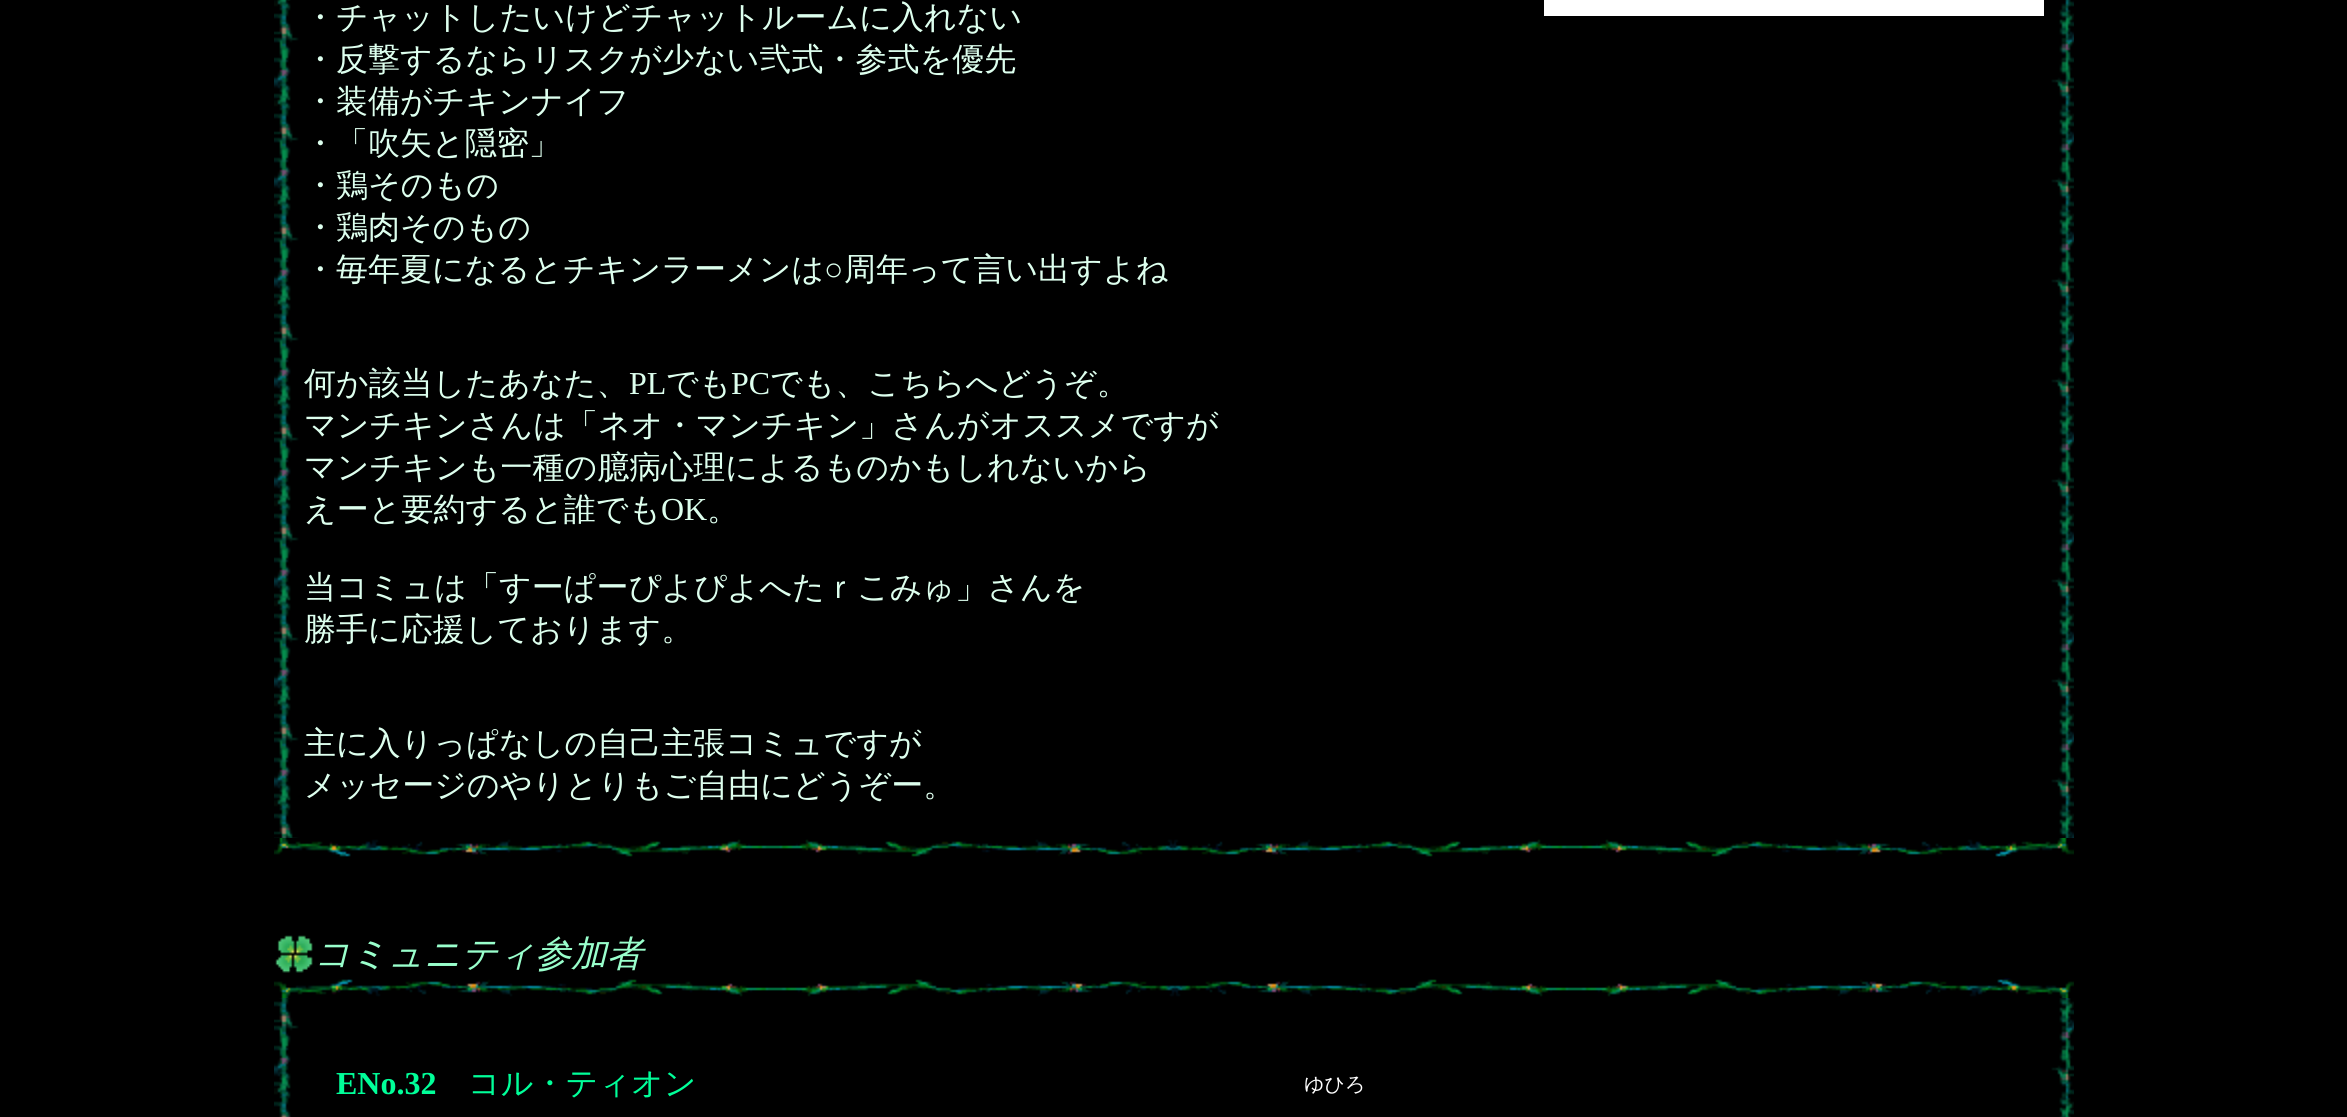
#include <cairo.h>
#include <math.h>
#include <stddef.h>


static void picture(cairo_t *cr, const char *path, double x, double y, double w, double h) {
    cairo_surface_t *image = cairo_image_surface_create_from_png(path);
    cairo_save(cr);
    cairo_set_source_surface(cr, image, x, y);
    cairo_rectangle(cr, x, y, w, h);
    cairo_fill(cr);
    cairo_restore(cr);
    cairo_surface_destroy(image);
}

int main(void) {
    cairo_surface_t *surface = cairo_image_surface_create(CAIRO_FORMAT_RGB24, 2347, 1117);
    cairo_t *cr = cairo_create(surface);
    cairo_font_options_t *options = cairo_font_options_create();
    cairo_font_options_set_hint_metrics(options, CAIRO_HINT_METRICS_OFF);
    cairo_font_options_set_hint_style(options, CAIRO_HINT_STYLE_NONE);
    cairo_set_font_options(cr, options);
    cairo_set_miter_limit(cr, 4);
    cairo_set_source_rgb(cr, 0, 0, 0);
    cairo_paint(cr);
    picture(cr, "img1.png", 274, 0, 1800, 838);
    cairo_select_font_face(cr, "WenQuanYi Zen Hei Medium", CAIRO_FONT_SLANT_NORMAL, CAIRO_FONT_WEIGHT_NORMAL);
    cairo_set_font_size(cr, 32);
    cairo_set_source_rgb(cr, 0.867, 1, 0.933);
    cairo_move_to(cr, 304, 28);
    cairo_show_text(cr, "・チャットしたいけどチャットルームに入れない");
    cairo_set_source_rgb(cr, 1, 1, 1);
    cairo_rectangle(cr, 1544, 0, 500, 16);
    cairo_fill(cr);
    cairo_set_source_rgb(cr, 0.867, 1, 0.933);
    cairo_move_to(cr, 304, 70);
    cairo_show_text(cr, "・反撃するならリスクが少ない弐式・参式を優先");
    cairo_move_to(cr, 304, 112);
    cairo_show_text(cr, "・装備がチキンナイフ");
    cairo_move_to(cr, 304, 154);
    cairo_show_text(cr, "・「吹矢と隠密」");
    cairo_move_to(cr, 304, 196);
    cairo_show_text(cr, "・鶏そのもの");
    cairo_move_to(cr, 304, 238);
    cairo_show_text(cr, "・鶏肉そのもの");
    cairo_move_to(cr, 304, 280);
    cairo_show_text(cr, "・毎年夏になるとチキンラーメンは");
    cairo_select_font_face(cr, "Liberation Serif", CAIRO_FONT_SLANT_NORMAL, CAIRO_FONT_WEIGHT_NORMAL);
    cairo_move_to(cr, 824, 280);
    cairo_show_text(cr, "○");
    cairo_select_font_face(cr, "WenQuanYi Zen Hei Medium", CAIRO_FONT_SLANT_NORMAL, CAIRO_FONT_WEIGHT_NORMAL);
    cairo_move_to(cr, 844, 280);
    cairo_show_text(cr, "周年って言い出すよね");
    cairo_move_to(cr, 304, 394);
    cairo_show_text(cr, "何か該当したあなた、");
    cairo_select_font_face(cr, "Liberation Serif", CAIRO_FONT_SLANT_NORMAL, CAIRO_FONT_WEIGHT_NORMAL);
    cairo_move_to(cr, 629, 394);
    cairo_show_text(cr, "PL");
    cairo_select_font_face(cr, "WenQuanYi Zen Hei Medium", CAIRO_FONT_SLANT_NORMAL, CAIRO_FONT_WEIGHT_NORMAL);
    cairo_move_to(cr, 666, 394);
    cairo_show_text(cr, "でも");
    cairo_select_font_face(cr, "Liberation Serif", CAIRO_FONT_SLANT_NORMAL, CAIRO_FONT_WEIGHT_NORMAL);
    cairo_move_to(cr, 731, 394);
    cairo_show_text(cr, "PC");
    cairo_select_font_face(cr, "WenQuanYi Zen Hei Medium", CAIRO_FONT_SLANT_NORMAL, CAIRO_FONT_WEIGHT_NORMAL);
    cairo_move_to(cr, 770, 394);
    cairo_show_text(cr, "でも、こちらへどうぞ。");
    cairo_move_to(cr, 304, 436);
    cairo_show_text(cr, "マンチキンさんは「ネオ・マンチキン」さんがオススメですが");
    cairo_move_to(cr, 304, 478);
    cairo_show_text(cr, "マンチキンも一種の臆病心理によるものかもしれないから");
    cairo_move_to(cr, 304, 520);
    cairo_show_text(cr, "えーと要約すると誰でも");
    cairo_select_font_face(cr, "Liberation Serif", CAIRO_FONT_SLANT_NORMAL, CAIRO_FONT_WEIGHT_NORMAL);
    cairo_move_to(cr, 661, 520);
    cairo_show_text(cr, "OK");
    cairo_select_font_face(cr, "WenQuanYi Zen Hei Medium", CAIRO_FONT_SLANT_NORMAL, CAIRO_FONT_WEIGHT_NORMAL);
    cairo_move_to(cr, 707, 520);
    cairo_show_text(cr, "。");
    cairo_move_to(cr, 304, 598);
    cairo_show_text(cr, "当コミュは「すーぱーぴよぴよへたｒこみゅ」さんを");
    cairo_move_to(cr, 304, 640);
    cairo_show_text(cr, "勝手に応援しております。");
    cairo_move_to(cr, 304, 754);
    cairo_show_text(cr, "主に入りっぱなしの自己主張コミュですが");
    cairo_move_to(cr, 304, 796);
    cairo_show_text(cr, "メッセージのやりとりもご自由にどうぞー。");
    picture(cr, "img2.png", 274, 838, 1800, 19);
    picture(cr, "img3.png", 275, 935, 38, 38);
    cairo_select_font_face(cr, "WenQuanYi Zen Hei Medium", CAIRO_FONT_SLANT_ITALIC, CAIRO_FONT_WEIGHT_NORMAL);
    cairo_set_font_size(cr, 36);
    cairo_set_source_rgb(cr, 0.6, 1, 0.8);
    cairo_move_to(cr, 314, 966);
    cairo_show_text(cr, "コミュニティ参加者");
    picture(cr, "img4.png", 274, 978, 1800, 20);
    picture(cr, "img5.png", 274, 998, 1800, 119);
    cairo_select_font_face(cr, "Liberation Serif", CAIRO_FONT_SLANT_NORMAL, CAIRO_FONT_WEIGHT_BOLD);
    cairo_set_font_size(cr, 32);
    cairo_set_source_rgb(cr, 0, 1, 0.6);
    cairo_move_to(cr, 336, 1094);
    cairo_show_text(cr, "ENo.32");
    cairo_select_font_face(cr, "WenQuanYi Zen Hei Medium", CAIRO_FONT_SLANT_NORMAL, CAIRO_FONT_WEIGHT_NORMAL);
    cairo_move_to(cr, 468, 1094);
    cairo_show_text(cr, "コル・ティオン");
    cairo_set_font_size(cr, 20);
    cairo_set_source_rgb(cr, 1, 1, 1);
    cairo_move_to(cr, 1304, 1091);
    cairo_show_text(cr, "ゆひろ");
    cairo_surface_write_to_png(surface, "page.png");
    cairo_font_options_destroy(options);
    cairo_destroy(cr);
    cairo_surface_destroy(surface);
    return 0;
}
